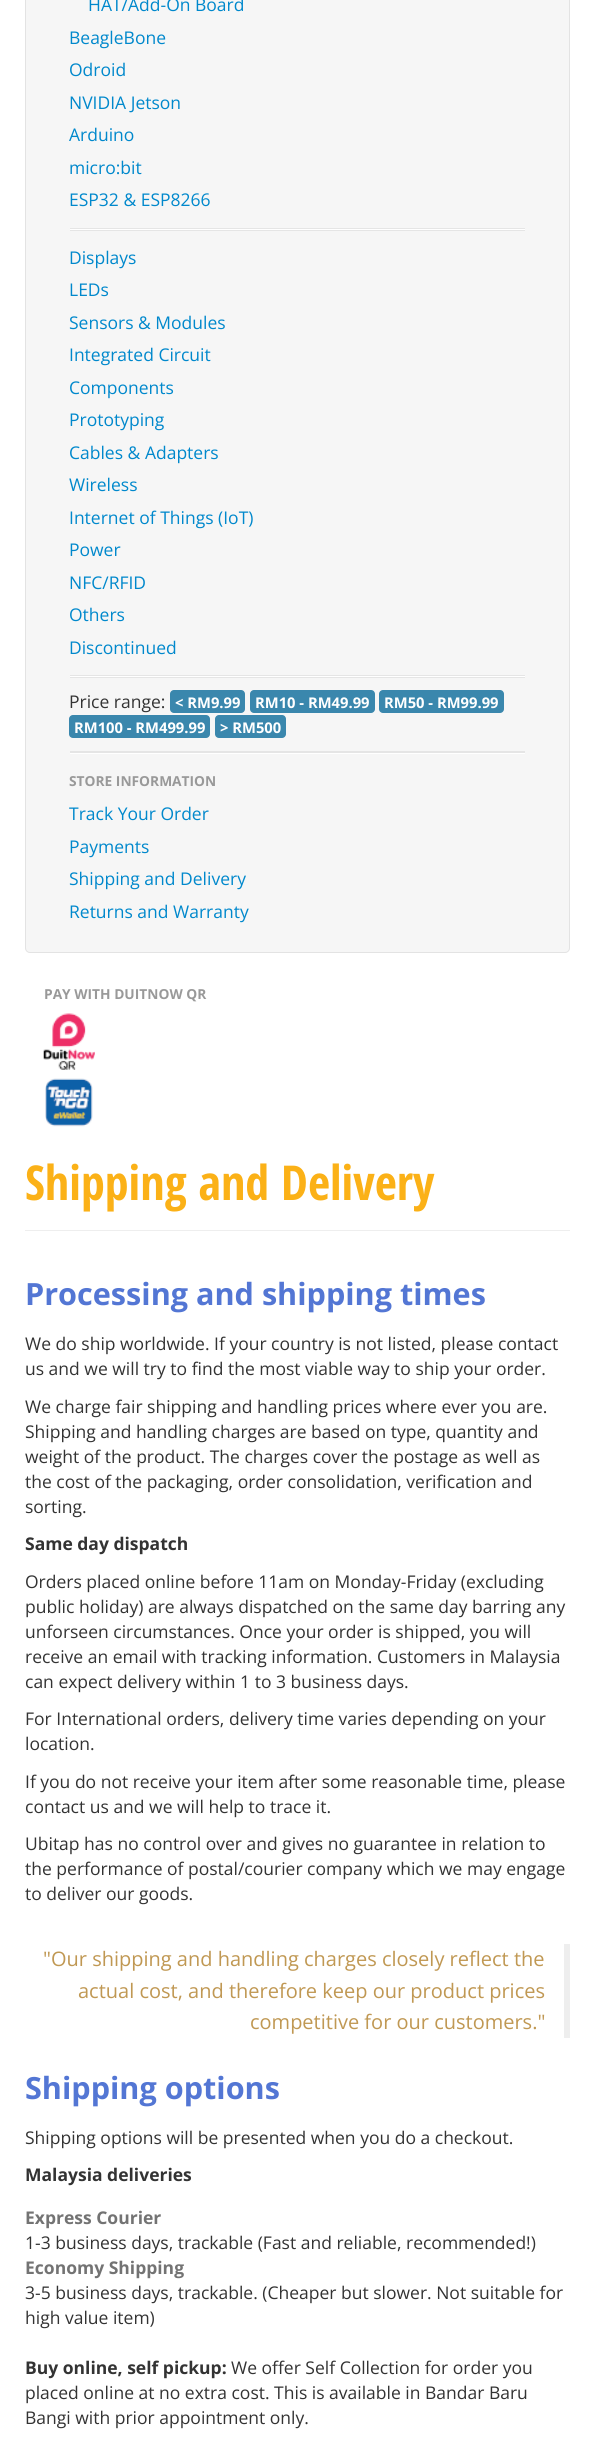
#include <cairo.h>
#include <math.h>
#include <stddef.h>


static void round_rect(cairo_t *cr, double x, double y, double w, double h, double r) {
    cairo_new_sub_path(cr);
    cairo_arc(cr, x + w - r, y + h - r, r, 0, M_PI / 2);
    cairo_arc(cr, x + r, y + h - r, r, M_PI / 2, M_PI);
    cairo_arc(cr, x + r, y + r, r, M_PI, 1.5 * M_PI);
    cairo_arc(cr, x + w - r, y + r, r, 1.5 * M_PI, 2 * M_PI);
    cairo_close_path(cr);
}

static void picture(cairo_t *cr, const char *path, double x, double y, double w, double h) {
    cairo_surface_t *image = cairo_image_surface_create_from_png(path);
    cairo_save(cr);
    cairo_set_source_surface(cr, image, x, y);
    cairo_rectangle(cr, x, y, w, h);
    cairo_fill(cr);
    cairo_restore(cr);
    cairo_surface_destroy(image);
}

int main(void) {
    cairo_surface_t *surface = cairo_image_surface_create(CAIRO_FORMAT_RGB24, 594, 2446);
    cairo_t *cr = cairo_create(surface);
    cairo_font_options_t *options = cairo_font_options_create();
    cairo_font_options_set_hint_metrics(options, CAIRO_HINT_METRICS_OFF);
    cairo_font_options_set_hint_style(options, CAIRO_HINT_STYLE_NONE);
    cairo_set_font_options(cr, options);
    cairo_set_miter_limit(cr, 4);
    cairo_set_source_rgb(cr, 1, 1, 1);
    cairo_paint(cr);
    cairo_set_source_rgb(cr, 0.961, 0.961, 0.961);
    round_rect(cr, 25.5, -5.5, 544, 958, 4.5);
    cairo_fill_preserve(cr);
    cairo_set_source_rgb(cr, 0.89, 0.89, 0.89);
    cairo_set_line_width(cr, 1);
    cairo_stroke(cr);
    cairo_select_font_face(cr, "Open Sans", CAIRO_FONT_SLANT_NORMAL, CAIRO_FONT_WEIGHT_NORMAL);
    cairo_set_font_size(cr, 17.5);
    cairo_set_source_rgb(cr, 0, 0.533, 0.8);
    cairo_move_to(cr, 88, 11);
    cairo_show_text(cr, "HAT/Add-On Board");
    cairo_move_to(cr, 69, 44);
    cairo_show_text(cr, "BeagleBone");
    cairo_move_to(cr, 69, 76);
    cairo_show_text(cr, "Odroid");
    cairo_move_to(cr, 69, 109);
    cairo_show_text(cr, "NVIDIA Jetson");
    cairo_move_to(cr, 69, 141);
    cairo_show_text(cr, "Arduino");
    cairo_move_to(cr, 69, 174);
    cairo_show_text(cr, "micro:bit");
    cairo_move_to(cr, 69, 206);
    cairo_show_text(cr, "ESP32 & ESP8266");
    cairo_set_source_rgb(cr, 0.898, 0.898, 0.898);
    cairo_rectangle(cr, 70, 228, 455, 3);
    cairo_fill(cr);
    cairo_set_source_rgb(cr, 1, 1, 1);
    cairo_rectangle(cr, 70, 229, 455, 1);
    cairo_fill(cr);
    cairo_set_source_rgb(cr, 0, 0.533, 0.8);
    cairo_move_to(cr, 69, 264);
    cairo_show_text(cr, "Displays");
    cairo_move_to(cr, 69, 296);
    cairo_show_text(cr, "LEDs");
    cairo_move_to(cr, 69, 329);
    cairo_show_text(cr, "Sensors & Modules");
    cairo_move_to(cr, 69, 361);
    cairo_show_text(cr, "Integrated Circuit");
    cairo_move_to(cr, 69, 394);
    cairo_show_text(cr, "Components");
    cairo_move_to(cr, 69, 426);
    cairo_show_text(cr, "Prototyping");
    cairo_move_to(cr, 69, 459);
    cairo_show_text(cr, "Cables & Adapters");
    cairo_move_to(cr, 69, 491);
    cairo_show_text(cr, "Wireless");
    cairo_move_to(cr, 69, 524);
    cairo_show_text(cr, "Internet of Things (IoT)");
    cairo_move_to(cr, 69, 556);
    cairo_show_text(cr, "Power");
    cairo_move_to(cr, 69, 589);
    cairo_show_text(cr, "NFC/RFID");
    cairo_move_to(cr, 69, 621);
    cairo_show_text(cr, "Others");
    cairo_move_to(cr, 69, 654);
    cairo_show_text(cr, "Discontinued");
    cairo_set_source_rgb(cr, 0.898, 0.898, 0.898);
    cairo_rectangle(cr, 70, 675, 455, 3);
    cairo_fill(cr);
    cairo_set_source_rgb(cr, 1, 1, 1);
    cairo_rectangle(cr, 70, 676, 455, 1);
    cairo_fill(cr);
    cairo_set_source_rgb(cr, 0.2, 0.2, 0.2);
    cairo_move_to(cr, 69, 708);
    cairo_show_text(cr, "Price range:");
    cairo_set_source_rgb(cr, 0.227, 0.529, 0.678);
    round_rect(cr, 170, 690, 75, 23, 4);
    cairo_fill(cr);
    cairo_select_font_face(cr, "Open Sans", CAIRO_FONT_SLANT_NORMAL, CAIRO_FONT_WEIGHT_BOLD);
    cairo_set_font_size(cr, 14.75);
    cairo_set_source_rgb(cr, 1, 1, 1);
    cairo_move_to(cr, 175, 708);
    cairo_show_text(cr, "< RM9.99");
    cairo_set_source_rgb(cr, 0.227, 0.529, 0.678);
    round_rect(cr, 250, 690, 125, 23, 4);
    cairo_fill(cr);
    cairo_set_source_rgb(cr, 1, 1, 1);
    cairo_move_to(cr, 255, 708);
    cairo_show_text(cr, "RM10 - RM49.99");
    cairo_set_source_rgb(cr, 0.227, 0.529, 0.678);
    round_rect(cr, 379, 690, 125, 23, 4);
    cairo_fill(cr);
    cairo_set_source_rgb(cr, 1, 1, 1);
    cairo_move_to(cr, 384, 708);
    cairo_show_text(cr, "RM50 - RM99.99");
    cairo_set_source_rgb(cr, 0.227, 0.529, 0.678);
    round_rect(cr, 69, 715, 141, 23, 4);
    cairo_fill(cr);
    cairo_set_source_rgb(cr, 1, 1, 1);
    cairo_move_to(cr, 74, 733);
    cairo_show_text(cr, "RM100 - RM499.99");
    cairo_set_source_rgb(cr, 0.227, 0.529, 0.678);
    round_rect(cr, 215, 715, 71, 23, 4);
    cairo_fill(cr);
    cairo_set_source_rgb(cr, 1, 1, 1);
    cairo_move_to(cr, 220, 733);
    cairo_show_text(cr, "> RM500");
    cairo_set_source_rgb(cr, 0.898, 0.898, 0.898);
    cairo_rectangle(cr, 70, 751, 455, 2);
    cairo_fill(cr);
    cairo_set_source_rgb(cr, 1, 1, 1);
    cairo_rectangle(cr, 70, 753, 455, 1);
    cairo_fill(cr);
    cairo_set_font_size(cr, 13.75);
    cairo_set_source_rgb(cr, 0.6, 0.6, 0.6);
    cairo_move_to(cr, 69, 786);
    cairo_show_text(cr, "STORE INFORMATION");
    cairo_select_font_face(cr, "Open Sans", CAIRO_FONT_SLANT_NORMAL, CAIRO_FONT_WEIGHT_NORMAL);
    cairo_set_font_size(cr, 17.5);
    cairo_set_source_rgb(cr, 0, 0.533, 0.8);
    cairo_move_to(cr, 69, 820);
    cairo_show_text(cr, "Track Your Order");
    cairo_move_to(cr, 69, 853);
    cairo_show_text(cr, "Payments");
    cairo_move_to(cr, 69, 885);
    cairo_show_text(cr, "Shipping and Delivery");
    cairo_move_to(cr, 69, 918);
    cairo_show_text(cr, "Returns and Warranty");
    cairo_select_font_face(cr, "Open Sans", CAIRO_FONT_SLANT_NORMAL, CAIRO_FONT_WEIGHT_BOLD);
    cairo_set_font_size(cr, 13.75);
    cairo_set_source_rgb(cr, 0.6, 0.6, 0.6);
    cairo_move_to(cr, 44, 999);
    cairo_show_text(cr, "PAY WITH DUITNOW QR");
    picture(cr, "img1.png", 43, 1013, 52, 57);
    picture(cr, "img2.png", 45, 1078, 48, 49);
    cairo_set_source_rgb(cr, 0.933, 0.933, 0.933);
    cairo_rectangle(cr, 25, 1230, 545, 1);
    cairo_fill(cr);
    cairo_select_font_face(cr, "Open Sans Condensed", CAIRO_FONT_SLANT_NORMAL, CAIRO_FONT_WEIGHT_BOLD);
    cairo_set_font_size(cr, 48.1);
    cairo_set_source_rgb(cr, 0.984, 0.694, 0.09);
    cairo_move_to(cr, 25, 1200);
    cairo_show_text(cr, "Shipping and Delivery");
    cairo_select_font_face(cr, "Open Sans", CAIRO_FONT_SLANT_NORMAL, CAIRO_FONT_WEIGHT_BOLD);
    cairo_set_font_size(cr, 30.6);
    cairo_set_source_rgb(cr, 0.325, 0.463, 0.831);
    cairo_move_to(cr, 25, 1305);
    cairo_show_text(cr, "Processing and shipping times");
    cairo_select_font_face(cr, "Open Sans", CAIRO_FONT_SLANT_NORMAL, CAIRO_FONT_WEIGHT_NORMAL);
    cairo_set_font_size(cr, 17.5);
    cairo_set_source_rgb(cr, 0.2, 0.2, 0.2);
    cairo_move_to(cr, 25, 1350);
    cairo_show_text(cr, "We do ship worldwide. If your country is not listed, please contact");
    cairo_move_to(cr, 25, 1375);
    cairo_show_text(cr, "us and we will try to find the most viable way to ship your order.");
    cairo_move_to(cr, 25, 1413);
    cairo_show_text(cr, "We charge fair shipping and handling prices where ever you are.");
    cairo_move_to(cr, 25, 1438);
    cairo_show_text(cr, "Shipping and handling charges are based on type, quantity and");
    cairo_move_to(cr, 25, 1463);
    cairo_show_text(cr, "weight of the product. The charges cover the postage as well as");
    cairo_move_to(cr, 25, 1488);
    cairo_show_text(cr, "the cost of the packaging, order consolidation, verification and");
    cairo_move_to(cr, 25, 1513);
    cairo_show_text(cr, "sorting.");
    cairo_select_font_face(cr, "Open Sans", CAIRO_FONT_SLANT_NORMAL, CAIRO_FONT_WEIGHT_BOLD);
    cairo_move_to(cr, 25, 1550);
    cairo_show_text(cr, "Same day dispatch");
    cairo_select_font_face(cr, "Open Sans", CAIRO_FONT_SLANT_NORMAL, CAIRO_FONT_WEIGHT_NORMAL);
    cairo_move_to(cr, 25, 1588);
    cairo_show_text(cr, "Orders placed online before 11am on Monday-Friday (excluding");
    cairo_move_to(cr, 25, 1613);
    cairo_show_text(cr, "public holiday) are always dispatched on the same day barring any");
    cairo_move_to(cr, 25, 1638);
    cairo_show_text(cr, "unforseen circumstances. Once your order is shipped, you will");
    cairo_move_to(cr, 25, 1663);
    cairo_show_text(cr, "receive an email with tracking information. Customers in Malaysia");
    cairo_move_to(cr, 25, 1688);
    cairo_show_text(cr, "can expect delivery within 1 to 3 business days.");
    cairo_move_to(cr, 25, 1725);
    cairo_show_text(cr, "For International orders, delivery time varies depending on your");
    cairo_move_to(cr, 25, 1750);
    cairo_show_text(cr, "location.");
    cairo_move_to(cr, 25, 1788);
    cairo_show_text(cr, "If you do not receive your item after some reasonable time, please");
    cairo_move_to(cr, 25, 1813);
    cairo_show_text(cr, "contact us and we will help to trace it.");
    cairo_move_to(cr, 25, 1850);
    cairo_show_text(cr, "Ubitap has no control over and gives no guarantee in relation to");
    cairo_move_to(cr, 25, 1875);
    cairo_show_text(cr, "the performance of postal/courier company which we may engage");
    cairo_move_to(cr, 25, 1900);
    cairo_show_text(cr, "to deliver our goods.");
    cairo_set_source_rgb(cr, 0.933, 0.933, 0.933);
    cairo_rectangle(cr, 564, 1944, 6, 94);
    cairo_fill(cr);
    cairo_set_font_size(cr, 20);
    cairo_set_source_rgb(cr, 0.753, 0.596, 0.325);
    cairo_move_to(cr, 43, 1966);
    cairo_show_text(cr, "\"Our shipping and handling charges closely reflect the");
    cairo_move_to(cr, 78, 1998);
    cairo_show_text(cr, "actual cost, and therefore keep our product prices");
    cairo_move_to(cr, 250, 2029);
    cairo_show_text(cr, "competitive for our customers.\"");
    cairo_select_font_face(cr, "Open Sans", CAIRO_FONT_SLANT_NORMAL, CAIRO_FONT_WEIGHT_BOLD);
    cairo_set_font_size(cr, 30.6);
    cairo_set_source_rgb(cr, 0.325, 0.463, 0.831);
    cairo_move_to(cr, 25, 2099);
    cairo_show_text(cr, "Shipping options");
    cairo_select_font_face(cr, "Open Sans", CAIRO_FONT_SLANT_NORMAL, CAIRO_FONT_WEIGHT_NORMAL);
    cairo_set_font_size(cr, 17.5);
    cairo_set_source_rgb(cr, 0.2, 0.2, 0.2);
    cairo_move_to(cr, 25, 2144);
    cairo_show_text(cr, "Shipping options will be presented when you do a checkout.");
    cairo_select_font_face(cr, "Open Sans", CAIRO_FONT_SLANT_NORMAL, CAIRO_FONT_WEIGHT_BOLD);
    cairo_move_to(cr, 25, 2181);
    cairo_show_text(cr, "Malaysia deliveries");
    cairo_set_source_rgb(cr, 0.451, 0.451, 0.451);
    cairo_move_to(cr, 25, 2224);
    cairo_show_text(cr, "Express Courier");
    cairo_select_font_face(cr, "Open Sans", CAIRO_FONT_SLANT_NORMAL, CAIRO_FONT_WEIGHT_NORMAL);
    cairo_set_source_rgb(cr, 0.2, 0.2, 0.2);
    cairo_move_to(cr, 25, 2249);
    cairo_show_text(cr, "1-3 business days, trackable (Fast and reliable, recommended!)");
    cairo_select_font_face(cr, "Open Sans", CAIRO_FONT_SLANT_NORMAL, CAIRO_FONT_WEIGHT_BOLD);
    cairo_set_source_rgb(cr, 0.451, 0.451, 0.451);
    cairo_move_to(cr, 25, 2274);
    cairo_show_text(cr, "Economy Shipping");
    cairo_select_font_face(cr, "Open Sans", CAIRO_FONT_SLANT_NORMAL, CAIRO_FONT_WEIGHT_NORMAL);
    cairo_set_source_rgb(cr, 0.2, 0.2, 0.2);
    cairo_move_to(cr, 25, 2299);
    cairo_show_text(cr, "3-5 business days, trackable. (Cheaper but slower. Not suitable for");
    cairo_move_to(cr, 25, 2324);
    cairo_show_text(cr, "high value item)");
    cairo_select_font_face(cr, "Open Sans", CAIRO_FONT_SLANT_NORMAL, CAIRO_FONT_WEIGHT_BOLD);
    cairo_move_to(cr, 25, 2374);
    cairo_show_text(cr, "Buy online, self pickup:");
    cairo_select_font_face(cr, "Open Sans", CAIRO_FONT_SLANT_NORMAL, CAIRO_FONT_WEIGHT_NORMAL);
    cairo_move_to(cr, 231, 2374);
    cairo_show_text(cr, "We offer Self Collection for order you");
    cairo_move_to(cr, 25, 2399);
    cairo_show_text(cr, "placed online at no extra cost. This is available in Bandar Baru");
    cairo_move_to(cr, 25, 2424);
    cairo_show_text(cr, "Bangi with prior appointment only.");
    cairo_surface_write_to_png(surface, "page.png");
    cairo_font_options_destroy(options);
    cairo_destroy(cr);
    cairo_surface_destroy(surface);
    return 0;
}
